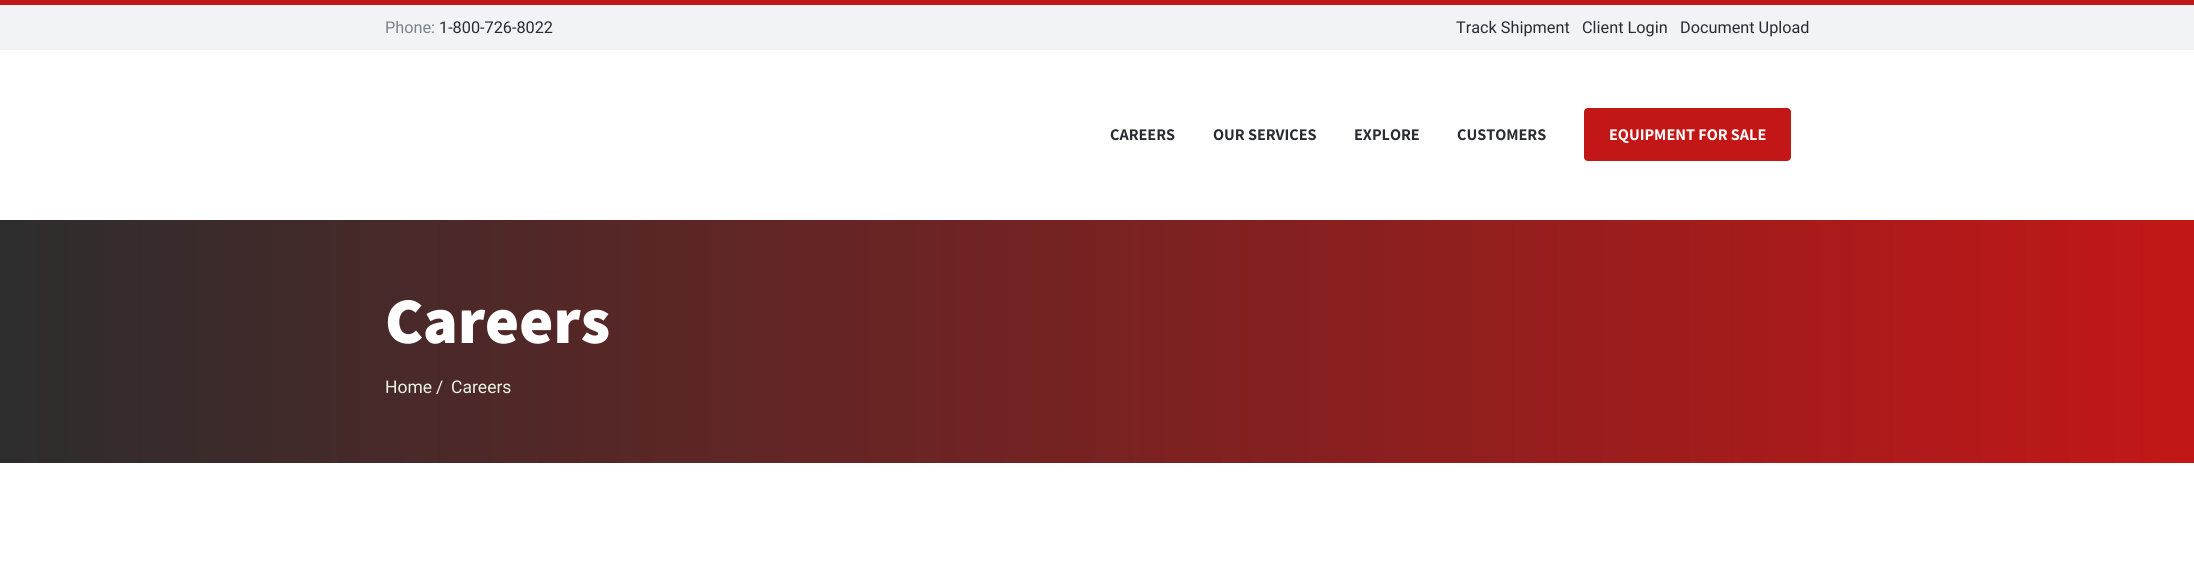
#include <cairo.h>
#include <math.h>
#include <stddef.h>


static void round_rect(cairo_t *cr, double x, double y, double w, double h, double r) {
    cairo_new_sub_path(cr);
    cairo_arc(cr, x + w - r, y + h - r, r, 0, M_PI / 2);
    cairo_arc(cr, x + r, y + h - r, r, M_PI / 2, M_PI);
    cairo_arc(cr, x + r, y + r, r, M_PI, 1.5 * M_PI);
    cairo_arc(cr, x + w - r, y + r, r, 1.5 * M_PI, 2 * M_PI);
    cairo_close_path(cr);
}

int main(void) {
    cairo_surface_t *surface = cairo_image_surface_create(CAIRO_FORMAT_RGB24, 2194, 585);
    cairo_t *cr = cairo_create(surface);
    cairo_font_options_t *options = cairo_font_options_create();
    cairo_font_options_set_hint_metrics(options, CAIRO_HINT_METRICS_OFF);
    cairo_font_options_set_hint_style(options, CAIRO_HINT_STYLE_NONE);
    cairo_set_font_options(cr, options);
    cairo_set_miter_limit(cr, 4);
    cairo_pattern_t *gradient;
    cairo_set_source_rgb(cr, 1, 1, 1);
    cairo_paint(cr);
    cairo_set_source_rgb(cr, 0.949, 0.953, 0.965);
    cairo_rectangle(cr, 0, 5, 2194, 45);
    cairo_fill(cr);
    cairo_set_source_rgb(cr, 0.765, 0.09, 0.09);
    cairo_rectangle(cr, 0, 0, 2194, 5);
    cairo_fill(cr);
    cairo_select_font_face(cr, "Heebo", CAIRO_FONT_SLANT_NORMAL, CAIRO_FONT_WEIGHT_NORMAL);
    cairo_set_font_size(cr, 16.25);
    cairo_set_source_rgb(cr, 0.482, 0.51, 0.522);
    cairo_move_to(cr, 385, 33);
    cairo_show_text(cr, "Phone:");
    cairo_set_source_rgb(cr, 0.165, 0.173, 0.196);
    cairo_move_to(cr, 439, 33);
    cairo_show_text(cr, "1-800-726-8022");
    cairo_move_to(cr, 1456, 33);
    cairo_show_text(cr, "Track Shipment");
    cairo_move_to(cr, 1582, 33);
    cairo_show_text(cr, "Client Login");
    cairo_move_to(cr, 1680, 33);
    cairo_show_text(cr, "Document Upload");
    cairo_select_font_face(cr, "Assistant", CAIRO_FONT_SLANT_NORMAL, CAIRO_FONT_WEIGHT_BOLD);
    cairo_move_to(cr, 1110, 140);
    cairo_show_text(cr, "CAREERS");
    cairo_move_to(cr, 1213, 140);
    cairo_show_text(cr, "OUR SERVICES");
    cairo_move_to(cr, 1354, 140);
    cairo_show_text(cr, "EXPLORE");
    cairo_move_to(cr, 1457, 140);
    cairo_show_text(cr, "CUSTOMERS");
    cairo_set_source_rgb(cr, 0.765, 0.09, 0.09);
    round_rect(cr, 1584, 108, 207, 53, 4);
    cairo_fill(cr);
    cairo_set_source_rgb(cr, 1, 1, 1);
    cairo_move_to(cr, 1609, 140);
    cairo_show_text(cr, "EQUIPMENT FOR SALE");
    gradient = cairo_pattern_create_linear(0, 341, 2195, 341);
    cairo_pattern_add_color_stop_rgba(gradient, 0, 0.176, 0.176, 0.176, 1);
    cairo_pattern_add_color_stop_rgba(gradient, 1, 0.765, 0.09, 0.09, 1);
    cairo_set_source(cr, gradient);
    cairo_pattern_destroy(gradient);
    cairo_rectangle(cr, 0, 220, 2194, 243);
    cairo_fill(cr);
    cairo_select_font_face(cr, "Assistant ExtraBold", CAIRO_FONT_SLANT_NORMAL, CAIRO_FONT_WEIGHT_NORMAL);
    cairo_set_font_size(cr, 65);
    cairo_set_source_rgb(cr, 1, 1, 1);
    cairo_move_to(cr, 385, 343);
    cairo_show_text(cr, "Careers");
    cairo_select_font_face(cr, "Heebo", CAIRO_FONT_SLANT_NORMAL, CAIRO_FONT_WEIGHT_NORMAL);
    cairo_set_font_size(cr, 17.5);
    cairo_set_source_rgb(cr, 0.914, 0.957, 0.886);
    cairo_move_to(cr, 385, 393);
    cairo_show_text(cr, "Home");
    cairo_move_to(cr, 436, 393);
    cairo_show_text(cr, "/");
    cairo_move_to(cr, 451, 393);
    cairo_show_text(cr, "Careers");
    cairo_surface_write_to_png(surface, "page.png");
    cairo_font_options_destroy(options);
    cairo_destroy(cr);
    cairo_surface_destroy(surface);
    return 0;
}
